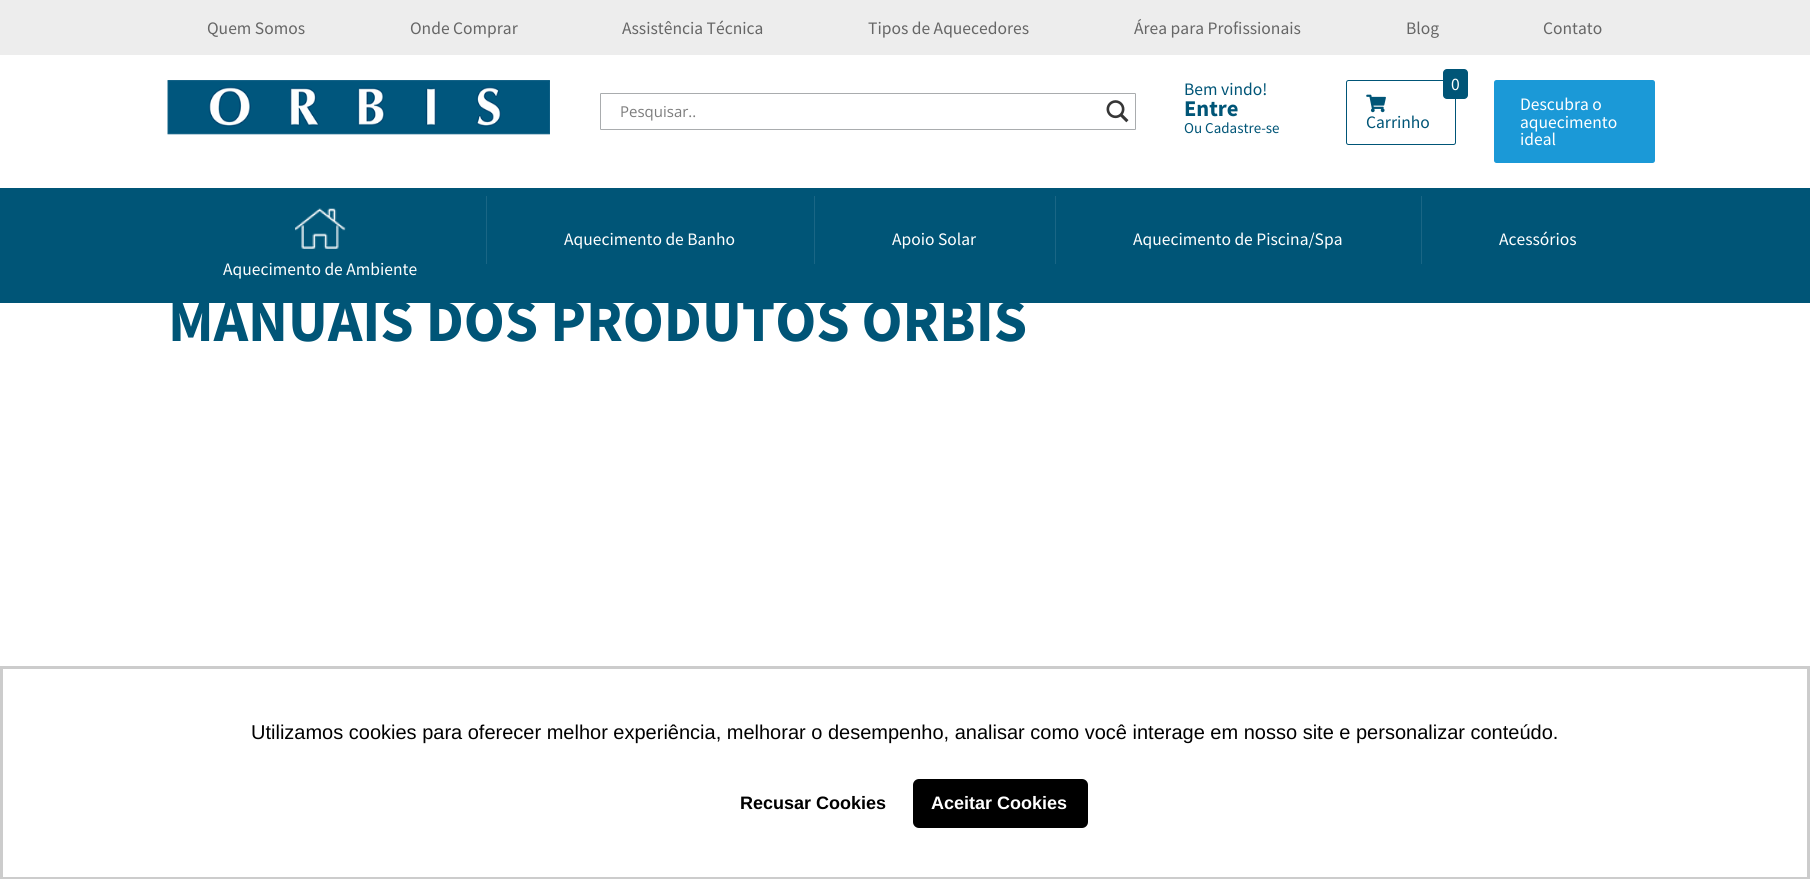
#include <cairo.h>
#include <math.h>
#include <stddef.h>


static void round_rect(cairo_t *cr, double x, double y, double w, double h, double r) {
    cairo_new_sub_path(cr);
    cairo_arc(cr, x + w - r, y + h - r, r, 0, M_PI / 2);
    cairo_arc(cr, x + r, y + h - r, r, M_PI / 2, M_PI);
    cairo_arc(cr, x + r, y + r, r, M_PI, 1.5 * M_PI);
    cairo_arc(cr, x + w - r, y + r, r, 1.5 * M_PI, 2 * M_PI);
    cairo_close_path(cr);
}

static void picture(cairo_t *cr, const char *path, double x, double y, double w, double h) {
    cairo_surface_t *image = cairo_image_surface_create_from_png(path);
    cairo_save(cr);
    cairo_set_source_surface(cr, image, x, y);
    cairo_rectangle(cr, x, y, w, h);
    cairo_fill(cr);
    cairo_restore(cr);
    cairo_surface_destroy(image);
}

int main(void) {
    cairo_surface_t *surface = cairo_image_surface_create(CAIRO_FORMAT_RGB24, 1810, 879);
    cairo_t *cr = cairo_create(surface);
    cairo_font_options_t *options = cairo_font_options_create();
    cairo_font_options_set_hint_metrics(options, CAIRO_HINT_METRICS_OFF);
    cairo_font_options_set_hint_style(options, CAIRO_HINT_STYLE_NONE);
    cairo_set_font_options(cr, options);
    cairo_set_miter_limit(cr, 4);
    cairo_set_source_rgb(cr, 1, 1, 1);
    cairo_paint(cr);
    cairo_set_source_rgb(cr, 0.929, 0.929, 0.929);
    cairo_rectangle(cr, 0, 0, 1810, 55);
    cairo_fill(cr);
    cairo_select_font_face(cr, "Source Sans Pro", CAIRO_FONT_SLANT_NORMAL, CAIRO_FONT_WEIGHT_NORMAL);
    cairo_set_font_size(cr, 17.5);
    cairo_set_source_rgb(cr, 0.4, 0.4, 0.4);
    cairo_move_to(cr, 207, 34);
    cairo_show_text(cr, "Quem Somos");
    cairo_move_to(cr, 410, 34);
    cairo_show_text(cr, "Onde Comprar");
    cairo_move_to(cr, 622, 34);
    cairo_show_text(cr, "Assistência Técnica");
    cairo_move_to(cr, 868, 34);
    cairo_show_text(cr, "Tipos de Aquecedores");
    cairo_move_to(cr, 1134, 34);
    cairo_show_text(cr, "Área para Profissionais");
    cairo_move_to(cr, 1406, 34);
    cairo_show_text(cr, "Blog");
    cairo_move_to(cr, 1543, 34);
    cairo_show_text(cr, "Contato");
    picture(cr, "img1.png", 167, 80, 383, 55);
    round_rect(cr, 600.5, 93.5, 535, 36, 0.5);
    cairo_set_source_rgb(cr, 0.663, 0.675, 0.682);
    cairo_set_line_width(cr, 1);
    cairo_stroke(cr);
    cairo_select_font_face(cr, "Open Sans", CAIRO_FONT_SLANT_NORMAL, CAIRO_FONT_WEIGHT_NORMAL);
    cairo_set_font_size(cr, 15);
    cairo_set_source_rgb(cr, 0.49, 0.49, 0.49);
    cairo_move_to(cr, 620, 117);
    cairo_show_text(cr, "Pesquisar..");
    picture(cr, "img2.png", 1106, 100, 23, 23);
    cairo_select_font_face(cr, "Source Sans Pro", CAIRO_FONT_SLANT_NORMAL, CAIRO_FONT_WEIGHT_NORMAL);
    cairo_set_font_size(cr, 17.5);
    cairo_set_source_rgb(cr, 0, 0.333, 0.467);
    cairo_move_to(cr, 1184, 95);
    cairo_show_text(cr, "Bem vindo!");
    cairo_select_font_face(cr, "Source Sans Pro", CAIRO_FONT_SLANT_NORMAL, CAIRO_FONT_WEIGHT_BOLD);
    cairo_set_font_size(cr, 22.5);
    cairo_move_to(cr, 1184, 116);
    cairo_show_text(cr, "Entre");
    cairo_select_font_face(cr, "Source Sans Pro", CAIRO_FONT_SLANT_NORMAL, CAIRO_FONT_WEIGHT_NORMAL);
    cairo_set_font_size(cr, 15);
    cairo_move_to(cr, 1184, 133);
    cairo_show_text(cr, "Ou Cadastre-se");
    round_rect(cr, 1346.5, 80.5, 109, 64, 2);
    cairo_stroke(cr);
    round_rect(cr, 1443, 69, 25, 30, 4);
    cairo_fill(cr);
    cairo_set_font_size(cr, 17.5);
    cairo_set_source_rgb(cr, 1, 1, 1);
    cairo_move_to(cr, 1451, 90);
    cairo_show_text(cr, "0");
    picture(cr, "img3.png", 1366, 94, 20, 19);
    cairo_set_source_rgb(cr, 0, 0.333, 0.467);
    cairo_move_to(cr, 1366, 128);
    cairo_show_text(cr, "Carrinho");
    cairo_set_source_rgb(cr, 0.106, 0.6, 0.843);
    round_rect(cr, 1494, 80, 161, 83, 2.5);
    cairo_fill(cr);
    cairo_set_source_rgb(cr, 1, 1, 1);
    cairo_move_to(cr, 1520, 110);
    cairo_show_text(cr, "Descubra o");
    cairo_move_to(cr, 1520, 128);
    cairo_show_text(cr, "aquecimento");
    cairo_move_to(cr, 1520, 145);
    cairo_show_text(cr, "ideal");
    cairo_set_source_rgb(cr, 0, 0.333, 0.467);
    cairo_rectangle(cr, 0, 188, 1810, 115);
    cairo_fill(cr);
    cairo_set_source_rgb(cr, 0.102, 0.4, 0.522);
    cairo_rectangle(cr, 486, 196, 1, 68);
    cairo_fill(cr);
    cairo_set_source_rgb(cr, 1, 1, 1);
    cairo_move_to(cr, 564, 245);
    cairo_show_text(cr, "Aquecimento de Banho");
    cairo_set_source_rgb(cr, 0.102, 0.4, 0.522);
    cairo_rectangle(cr, 814, 196, 1, 68);
    cairo_fill(cr);
    cairo_set_source_rgb(cr, 1, 1, 1);
    cairo_move_to(cr, 892, 245);
    cairo_show_text(cr, "Apoio Solar");
    cairo_set_source_rgb(cr, 0.102, 0.4, 0.522);
    cairo_rectangle(cr, 1055, 196, 1, 68);
    cairo_fill(cr);
    cairo_set_source_rgb(cr, 1, 1, 1);
    cairo_move_to(cr, 1133, 245);
    cairo_show_text(cr, "Aquecimento de Piscina/Spa");
    cairo_set_source_rgb(cr, 0.102, 0.4, 0.522);
    cairo_rectangle(cr, 1421, 196, 1, 68);
    cairo_fill(cr);
    cairo_set_source_rgb(cr, 1, 1, 1);
    cairo_move_to(cr, 1499, 245);
    cairo_show_text(cr, "Acessórios");
    picture(cr, "img4.png", 295, 208, 51, 41);
    cairo_move_to(cr, 223, 275);
    cairo_show_text(cr, "Aquecimento de Ambiente");
    cairo_select_font_face(cr, "Source Sans Pro", CAIRO_FONT_SLANT_NORMAL, CAIRO_FONT_WEIGHT_BOLD);
    cairo_set_font_size(cr, 60);
    cairo_set_source_rgb(cr, 0, 0.333, 0.467);
    cairo_move_to(cr, 168, 341);
    cairo_show_text(cr, "MANUAIS DOS PRODUTOS ORBIS");
    cairo_rectangle(cr, 1.5, 667.5, 1807, 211);
    cairo_set_source_rgb(cr, 0.8, 0.8, 0.8);
    cairo_set_line_width(cr, 3);
    cairo_stroke(cr);
    cairo_select_font_face(cr, "Liberation Sans", CAIRO_FONT_SLANT_NORMAL, CAIRO_FONT_WEIGHT_NORMAL);
    cairo_set_font_size(cr, 20);
    cairo_set_source_rgb(cr, 0, 0, 0);
    cairo_move_to(cr, 251, 739);
    cairo_show_text(cr, "Utilizamos cookies para oferecer melhor experiência, melhorar o desempenho, analisar como você interage em nosso site e personalizar conteúdo.");
    cairo_select_font_face(cr, "Liberation Sans", CAIRO_FONT_SLANT_NORMAL, CAIRO_FONT_WEIGHT_BOLD);
    cairo_set_font_size(cr, 18);
    cairo_move_to(cr, 740, 809);
    cairo_show_text(cr, "Recusar Cookies");
    round_rect(cr, 913, 779, 175, 49, 6);
    cairo_fill(cr);
    cairo_set_source_rgb(cr, 1, 1, 1);
    cairo_move_to(cr, 931, 809);
    cairo_show_text(cr, "Aceitar Cookies");
    cairo_surface_write_to_png(surface, "page.png");
    cairo_font_options_destroy(options);
    cairo_destroy(cr);
    cairo_surface_destroy(surface);
    return 0;
}
